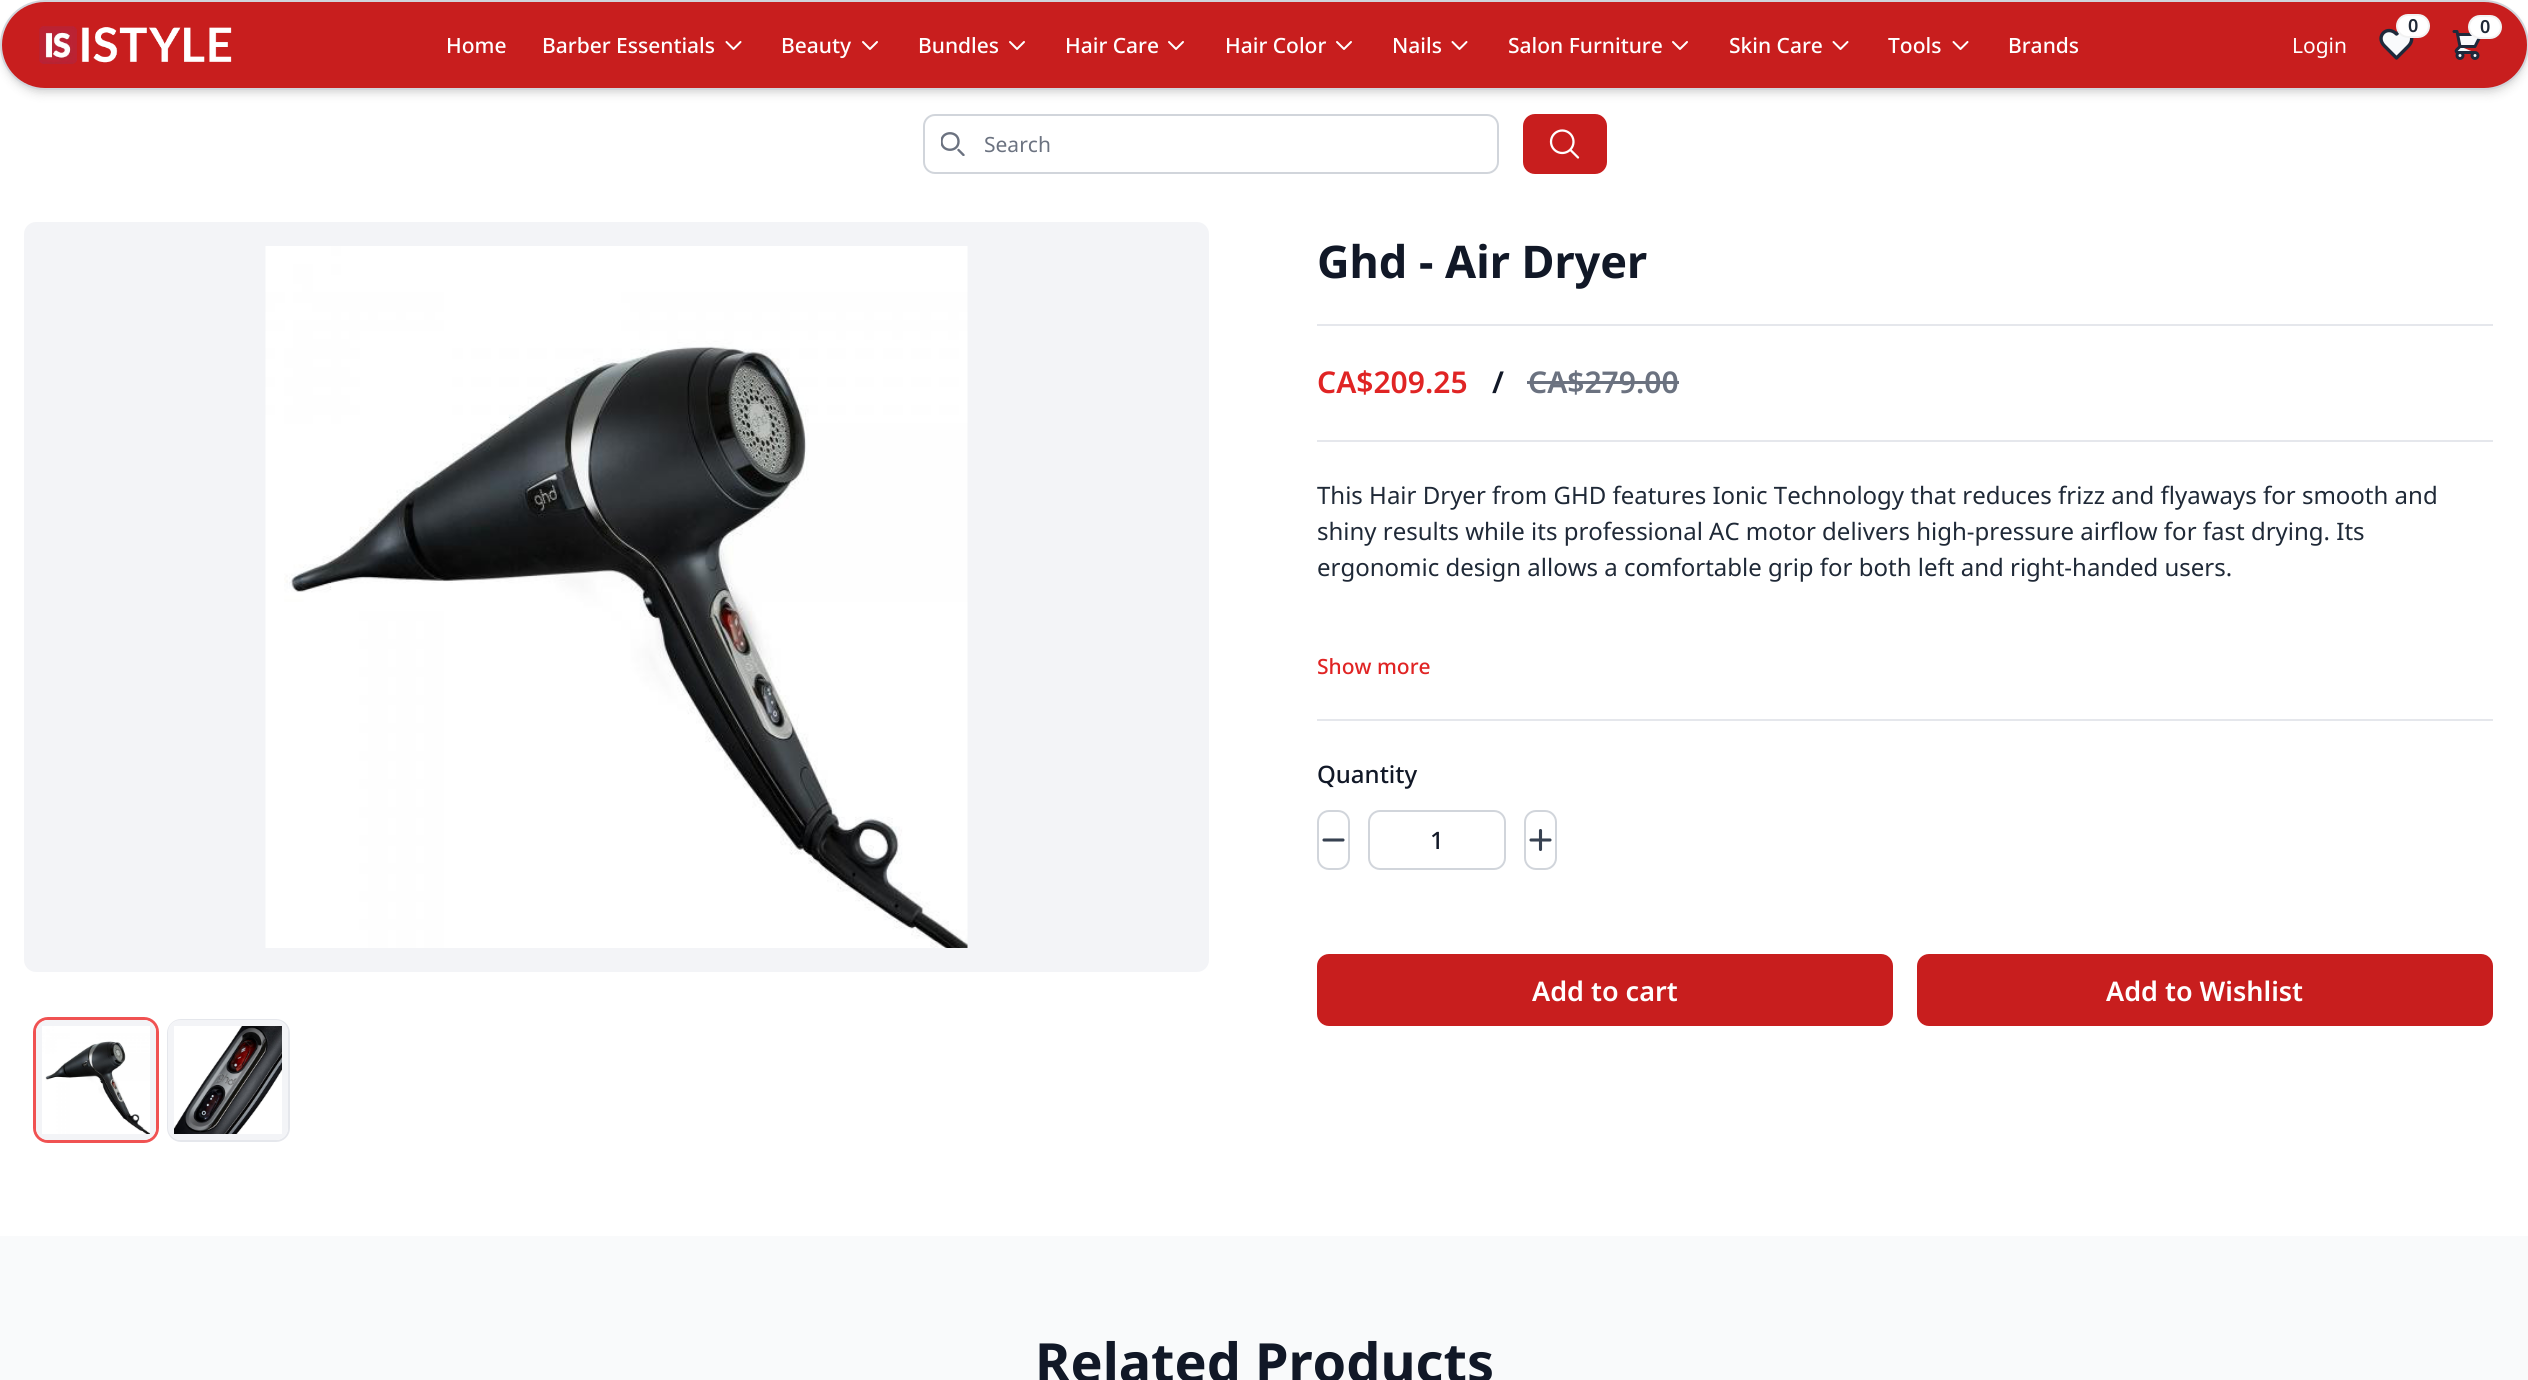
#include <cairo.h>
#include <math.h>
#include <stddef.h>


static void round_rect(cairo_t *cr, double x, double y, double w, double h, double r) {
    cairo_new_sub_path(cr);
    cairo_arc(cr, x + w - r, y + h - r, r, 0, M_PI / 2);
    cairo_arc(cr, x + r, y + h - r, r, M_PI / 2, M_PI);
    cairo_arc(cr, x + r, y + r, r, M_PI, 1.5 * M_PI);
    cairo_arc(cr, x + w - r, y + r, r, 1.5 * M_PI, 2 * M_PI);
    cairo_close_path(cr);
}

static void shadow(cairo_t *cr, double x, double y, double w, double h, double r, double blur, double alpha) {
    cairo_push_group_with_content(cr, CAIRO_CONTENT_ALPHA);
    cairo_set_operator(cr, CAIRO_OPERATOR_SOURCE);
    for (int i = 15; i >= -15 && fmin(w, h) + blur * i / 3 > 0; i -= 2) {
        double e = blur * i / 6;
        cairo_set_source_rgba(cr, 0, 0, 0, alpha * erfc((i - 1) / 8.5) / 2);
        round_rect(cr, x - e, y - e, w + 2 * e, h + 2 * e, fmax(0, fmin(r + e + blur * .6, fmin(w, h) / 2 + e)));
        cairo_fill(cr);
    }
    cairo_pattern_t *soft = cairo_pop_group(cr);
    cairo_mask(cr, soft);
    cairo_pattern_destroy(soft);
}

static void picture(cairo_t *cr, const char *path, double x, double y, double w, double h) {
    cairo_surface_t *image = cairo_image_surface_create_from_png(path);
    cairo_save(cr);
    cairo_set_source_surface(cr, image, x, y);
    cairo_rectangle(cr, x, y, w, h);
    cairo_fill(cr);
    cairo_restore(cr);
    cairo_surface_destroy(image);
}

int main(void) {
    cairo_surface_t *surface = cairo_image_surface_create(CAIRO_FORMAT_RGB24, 2528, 1380);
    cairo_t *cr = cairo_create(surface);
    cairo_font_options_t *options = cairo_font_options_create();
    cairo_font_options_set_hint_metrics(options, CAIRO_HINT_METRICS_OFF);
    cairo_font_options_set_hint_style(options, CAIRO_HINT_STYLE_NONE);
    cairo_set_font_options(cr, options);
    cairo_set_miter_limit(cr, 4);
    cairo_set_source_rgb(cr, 1, 1, 1);
    cairo_paint(cr);
    cairo_set_source_rgb(cr, 0, 0, 0);
    shadow(cr, 3, 6, 2523, 84, 42, 3, 0.1);
    shadow(cr, 2, 8, 2526, 87, 43.5, 4.5, 0.1);
    cairo_set_source_rgb(cr, 0.784, 0.118, 0.118);
    round_rect(cr, 1, 1, 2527, 88, 44);
    cairo_fill_preserve(cr);
    cairo_set_source_rgb(cr, 0.82, 0.835, 0.859);
    cairo_stroke(cr);
    picture(cr, "img1.png", 39, 26, 193, 38);
    cairo_select_font_face(cr, "Noto Sans Medium", CAIRO_FONT_SLANT_NORMAL, CAIRO_FONT_WEIGHT_NORMAL);
    cairo_set_font_size(cr, 21);
    cairo_set_source_rgb(cr, 1, 1, 1);
    cairo_move_to(cr, 446, 53);
    cairo_show_text(cr, "Home");
    cairo_move_to(cr, 542, 53);
    cairo_show_text(cr, "Barber Essentials");
    cairo_new_path(cr);
    cairo_move_to(cr, 740.5, 42);
    cairo_line_to(cr, 733.5, 49);
    cairo_line_to(cr, 726.5, 42);
    cairo_set_line_cap(cr, CAIRO_LINE_CAP_ROUND);
    cairo_set_line_join(cr, CAIRO_LINE_JOIN_ROUND);
    cairo_stroke(cr);
    cairo_move_to(cr, 781, 53);
    cairo_show_text(cr, "Beauty");
    cairo_new_path(cr);
    cairo_move_to(cr, 877, 42);
    cairo_line_to(cr, 870, 49);
    cairo_line_to(cr, 863, 42);
    cairo_stroke(cr);
    cairo_move_to(cr, 918, 53);
    cairo_show_text(cr, "Bundles");
    cairo_new_path(cr);
    cairo_move_to(cr, 1024, 42);
    cairo_line_to(cr, 1017, 49);
    cairo_line_to(cr, 1010, 42);
    cairo_stroke(cr);
    cairo_move_to(cr, 1065, 53);
    cairo_show_text(cr, "Hair Care");
    cairo_new_path(cr);
    cairo_move_to(cr, 1183, 42);
    cairo_line_to(cr, 1176, 49);
    cairo_line_to(cr, 1169, 42);
    cairo_stroke(cr);
    cairo_move_to(cr, 1225, 53);
    cairo_show_text(cr, "Hair Color");
    cairo_new_path(cr);
    cairo_move_to(cr, 1351, 42);
    cairo_line_to(cr, 1344, 49);
    cairo_line_to(cr, 1337, 42);
    cairo_stroke(cr);
    cairo_move_to(cr, 1392, 53);
    cairo_show_text(cr, "Nails");
    cairo_new_path(cr);
    cairo_move_to(cr, 1466.5, 42);
    cairo_line_to(cr, 1459.5, 49);
    cairo_line_to(cr, 1452.5, 42);
    cairo_stroke(cr);
    cairo_move_to(cr, 1508, 53);
    cairo_show_text(cr, "Salon Furniture");
    cairo_new_path(cr);
    cairo_move_to(cr, 1687, 42);
    cairo_line_to(cr, 1680, 49);
    cairo_line_to(cr, 1673, 42);
    cairo_stroke(cr);
    cairo_move_to(cr, 1729, 53);
    cairo_show_text(cr, "Skin Care");
    cairo_new_path(cr);
    cairo_move_to(cr, 1847.5, 42);
    cairo_line_to(cr, 1840.5, 49);
    cairo_line_to(cr, 1833.5, 42);
    cairo_stroke(cr);
    cairo_move_to(cr, 1888, 53);
    cairo_show_text(cr, "Tools");
    cairo_new_path(cr);
    cairo_move_to(cr, 1967.5, 42);
    cairo_line_to(cr, 1960.5, 49);
    cairo_line_to(cr, 1953.5, 42);
    cairo_stroke(cr);
    cairo_move_to(cr, 2008, 53);
    cairo_show_text(cr, "Brands");
    cairo_set_source_rgb(cr, 0.973, 0.98, 0.988);
    cairo_new_path(cr);
    cairo_move_to(cr, 2396, 34);
    cairo_curve_to(cr, 2387, 25, 2375, 37, 2384, 46);
    cairo_line_to(cr, 2396, 58);
    cairo_line_to(cr, 2408, 46);
    cairo_curve_to(cr, 2418, 37, 2406, 25, 2396, 34);
    cairo_close_path(cr);
    cairo_fill(cr);
    cairo_new_path(cr);
    cairo_move_to(cr, 2396.5, 34);
    cairo_curve_to(cr, 2387, 24.5, 2375, 36.5, 2384.5, 46);
    cairo_line_to(cr, 2396.5, 58);
    cairo_line_to(cr, 2408.5, 46);
    cairo_curve_to(cr, 2417.5, 36.5, 2405.5, 24.5, 2396.5, 34);
    cairo_close_path(cr);
    cairo_set_source_rgb(cr, 0.118, 0.161, 0.231);
    cairo_set_line_width(cr, 3.4);
    cairo_stroke(cr);
    cairo_set_source_rgb(cr, 1, 1, 1);
    round_rect(cr, 2397, 15, 32, 22, 11);
    cairo_fill_preserve(cr);
    cairo_set_source_rgb(cr, 0.949, 0.949, 0.949);
    cairo_set_line_width(cr, 2);
    cairo_set_line_cap(cr, CAIRO_LINE_CAP_BUTT);
    cairo_set_line_join(cr, CAIRO_LINE_JOIN_MITER);
    cairo_stroke(cr);
    cairo_select_font_face(cr, "Noto Sans SemiBold", CAIRO_FONT_SLANT_NORMAL, CAIRO_FONT_WEIGHT_NORMAL);
    cairo_set_font_size(cr, 18);
    cairo_set_source_rgb(cr, 0.122, 0.161, 0.216);
    cairo_move_to(cr, 2408, 32);
    cairo_show_text(cr, "0");
    picture(cr, "img2.png", 2452, 30, 29, 30);
    cairo_set_source_rgb(cr, 1, 1, 1);
    round_rect(cr, 2469, 16, 32, 22, 11);
    cairo_fill_preserve(cr);
    cairo_set_source_rgb(cr, 0.949, 0.949, 0.949);
    cairo_stroke(cr);
    cairo_set_source_rgb(cr, 0.122, 0.161, 0.216);
    cairo_move_to(cr, 2480, 33);
    cairo_show_text(cr, "0");
    cairo_select_font_face(cr, "Noto Sans", CAIRO_FONT_SLANT_NORMAL, CAIRO_FONT_WEIGHT_NORMAL);
    cairo_set_font_size(cr, 21);
    cairo_set_source_rgb(cr, 1, 1, 1);
    cairo_move_to(cr, 2292, 53);
    cairo_show_text(cr, "Login");
    round_rect(cr, 924, 115, 574, 58, 11);
    cairo_set_source_rgb(cr, 0.82, 0.835, 0.859);
    cairo_stroke(cr);
    cairo_save(cr);
    cairo_rectangle(cr, 941, 132, 24, 24);
    cairo_clip(cr);
    cairo_new_path(cr);
    cairo_move_to(cr, 963.5, 155);
    cairo_line_to(cr, 958.5, 150);
    cairo_move_to(cr, 958.5, 141.5);
    cairo_curve_to(cr, 958.5, 152.5, 941.5, 152.5, 941.5, 141.5);
    cairo_curve_to(cr, 941.5, 130.5, 958.5, 130.5, 958.5, 141.5);
    cairo_close_path(cr);
    cairo_set_source_rgb(cr, 0.42, 0.447, 0.502);
    cairo_set_line_width(cr, 2.4);
    cairo_set_line_cap(cr, CAIRO_LINE_CAP_ROUND);
    cairo_set_line_join(cr, CAIRO_LINE_JOIN_ROUND);
    cairo_stroke(cr);
    cairo_restore(cr);
    cairo_set_source_rgb(cr, 0.42, 0.447, 0.502);
    cairo_move_to(cr, 984, 152);
    cairo_show_text(cr, "Search");
    cairo_set_source_rgb(cr, 0.784, 0.118, 0.118);
    round_rect(cr, 1523, 114, 84, 60, 12);
    cairo_fill(cr);
    picture(cr, "img3.png", 1549, 129, 31, 30);
    cairo_set_source_rgb(cr, 0.953, 0.957, 0.965);
    round_rect(cr, 24, 222, 1185, 750, 12);
    cairo_fill(cr);
    picture(cr, "img4.png", 265, 246, 703, 702);
    round_rect(cr, 34.5, 1018.5, 123, 123, 13.5);
    cairo_set_source_rgb(cr, 0.941, 0.322, 0.322);
    cairo_set_line_width(cr, 3);
    cairo_stroke(cr);
    cairo_set_source_rgb(cr, 0.953, 0.957, 0.965);
    round_rect(cr, 36, 1020, 120, 120, 12);
    cairo_fill(cr);
    picture(cr, "img5.png", 42, 1026, 108, 108);
    round_rect(cr, 168, 1020, 121, 121, 13);
    cairo_set_source_rgb(cr, 0.898, 0.906, 0.922);
    cairo_set_line_width(cr, 2);
    cairo_stroke(cr);
    cairo_set_source_rgb(cr, 0.953, 0.957, 0.965);
    round_rect(cr, 168, 1020, 120, 120, 12);
    cairo_fill(cr);
    picture(cr, "img6.png", 174, 1026, 108, 108);
    cairo_select_font_face(cr, "Noto Sans", CAIRO_FONT_SLANT_NORMAL, CAIRO_FONT_WEIGHT_BOLD);
    cairo_set_font_size(cr, 45);
    cairo_set_source_rgb(cr, 0.067, 0.094, 0.153);
    cairo_move_to(cr, 1317, 278);
    cairo_show_text(cr, "Ghd - Air Dryer");
    cairo_set_source_rgb(cr, 0.898, 0.906, 0.922);
    cairo_rectangle(cr, 1317, 324, 1176, 2);
    cairo_fill(cr);
    cairo_select_font_face(cr, "Noto Sans SemiBold", CAIRO_FONT_SLANT_NORMAL, CAIRO_FONT_WEIGHT_NORMAL);
    cairo_set_font_size(cr, 30);
    cairo_set_source_rgb(cr, 0.878, 0.141, 0.141);
    cairo_move_to(cr, 1317, 393);
    cairo_show_text(cr, "CA$209.25");
    cairo_set_source_rgb(cr, 0.067, 0.094, 0.153);
    cairo_move_to(cr, 1492, 393);
    cairo_show_text(cr, "/");
    cairo_set_source_rgb(cr, 0.42, 0.447, 0.502);
    cairo_move_to(cr, 1528, 393);
    cairo_show_text(cr, "CA$279.00");
    cairo_rectangle(cr, 1527, 381, 152, 3);
    cairo_fill(cr);
    cairo_set_source_rgb(cr, 0.898, 0.906, 0.922);
    cairo_rectangle(cr, 1317, 440, 1176, 2);
    cairo_fill(cr);
    cairo_select_font_face(cr, "Noto Sans", CAIRO_FONT_SLANT_NORMAL, CAIRO_FONT_WEIGHT_NORMAL);
    cairo_set_font_size(cr, 24);
    cairo_set_source_rgb(cr, 0.122, 0.161, 0.216);
    cairo_move_to(cr, 1317, 504);
    cairo_show_text(cr, "This Hair Dryer from GHD features Ionic Technology that reduces frizz and flyaways for smooth and");
    cairo_move_to(cr, 1317, 540);
    cairo_show_text(cr, "shiny results while its professional AC motor delivers high-pressure airflow for fast drying. Its");
    cairo_move_to(cr, 1317, 576);
    cairo_show_text(cr, "ergonomic design allows a comfortable grip for both left and right-handed users.");
    cairo_select_font_face(cr, "Noto Sans Medium", CAIRO_FONT_SLANT_NORMAL, CAIRO_FONT_WEIGHT_NORMAL);
    cairo_set_font_size(cr, 21);
    cairo_set_source_rgb(cr, 0.878, 0.141, 0.141);
    cairo_move_to(cr, 1317, 674);
    cairo_show_text(cr, "Show more");
    cairo_set_source_rgb(cr, 0.898, 0.906, 0.922);
    cairo_rectangle(cr, 1317, 719, 1176, 2);
    cairo_fill(cr);
    cairo_set_font_size(cr, 24);
    cairo_set_source_rgb(cr, 0.067, 0.094, 0.153);
    cairo_move_to(cr, 1317, 783);
    cairo_show_text(cr, "Quantity");
    round_rect(cr, 1318, 811, 31, 58, 11);
    cairo_set_source_rgb(cr, 0.82, 0.835, 0.859);
    cairo_stroke(cr);
    cairo_new_path(cr);
    cairo_move_to(cr, 1343, 840);
    cairo_line_to(cr, 1324, 840);
    cairo_set_source_rgb(cr, 0.216, 0.255, 0.318);
    cairo_set_line_width(cr, 3.1);
    cairo_set_line_cap(cr, CAIRO_LINE_CAP_ROUND);
    cairo_set_line_join(cr, CAIRO_LINE_JOIN_ROUND);
    cairo_stroke(cr);
    round_rect(cr, 1369, 811, 136, 58, 11);
    cairo_set_source_rgb(cr, 0.82, 0.835, 0.859);
    cairo_set_line_width(cr, 2);
    cairo_set_line_cap(cr, CAIRO_LINE_CAP_BUTT);
    cairo_set_line_join(cr, CAIRO_LINE_JOIN_MITER);
    cairo_stroke(cr);
    cairo_set_source_rgb(cr, 0.067, 0.094, 0.153);
    cairo_move_to(cr, 1430, 849);
    cairo_show_text(cr, "1");
    round_rect(cr, 1525, 811, 31, 58, 11);
    cairo_set_source_rgb(cr, 0.82, 0.835, 0.859);
    cairo_stroke(cr);
    cairo_new_path(cr);
    cairo_move_to(cr, 1540.5, 830.5);
    cairo_line_to(cr, 1540.5, 849.5);
    cairo_move_to(cr, 1550, 840);
    cairo_line_to(cr, 1531, 840);
    cairo_set_source_rgb(cr, 0.216, 0.255, 0.318);
    cairo_set_line_width(cr, 3.1);
    cairo_set_line_cap(cr, CAIRO_LINE_CAP_ROUND);
    cairo_set_line_join(cr, CAIRO_LINE_JOIN_ROUND);
    cairo_stroke(cr);
    cairo_set_source_rgb(cr, 0.784, 0.118, 0.118);
    round_rect(cr, 1317, 954, 576, 72, 12);
    cairo_fill(cr);
    cairo_select_font_face(cr, "Noto Sans SemiBold", CAIRO_FONT_SLANT_NORMAL, CAIRO_FONT_WEIGHT_NORMAL);
    cairo_set_font_size(cr, 27);
    cairo_set_source_rgb(cr, 1, 1, 1);
    cairo_move_to(cr, 1532, 1001);
    cairo_show_text(cr, "Add to cart");
    cairo_set_source_rgb(cr, 0.784, 0.118, 0.118);
    round_rect(cr, 1917, 954, 576, 72, 12);
    cairo_fill(cr);
    cairo_set_source_rgb(cr, 1, 1, 1);
    cairo_move_to(cr, 2106, 1001);
    cairo_show_text(cr, "Add to Wishlist");
    cairo_set_source_rgb(cr, 0.976, 0.98, 0.984);
    cairo_rectangle(cr, 0, 1236, 2528, 144);
    cairo_fill(cr);
    cairo_select_font_face(cr, "Noto Sans", CAIRO_FONT_SLANT_NORMAL, CAIRO_FONT_WEIGHT_BOLD);
    cairo_set_font_size(cr, 54);
    cairo_set_source_rgb(cr, 0.067, 0.094, 0.153);
    cairo_move_to(cr, 1035, 1382);
    cairo_show_text(cr, "Related Products");
    cairo_surface_write_to_png(surface, "page.png");
    cairo_font_options_destroy(options);
    cairo_destroy(cr);
    cairo_surface_destroy(surface);
    return 0;
}
